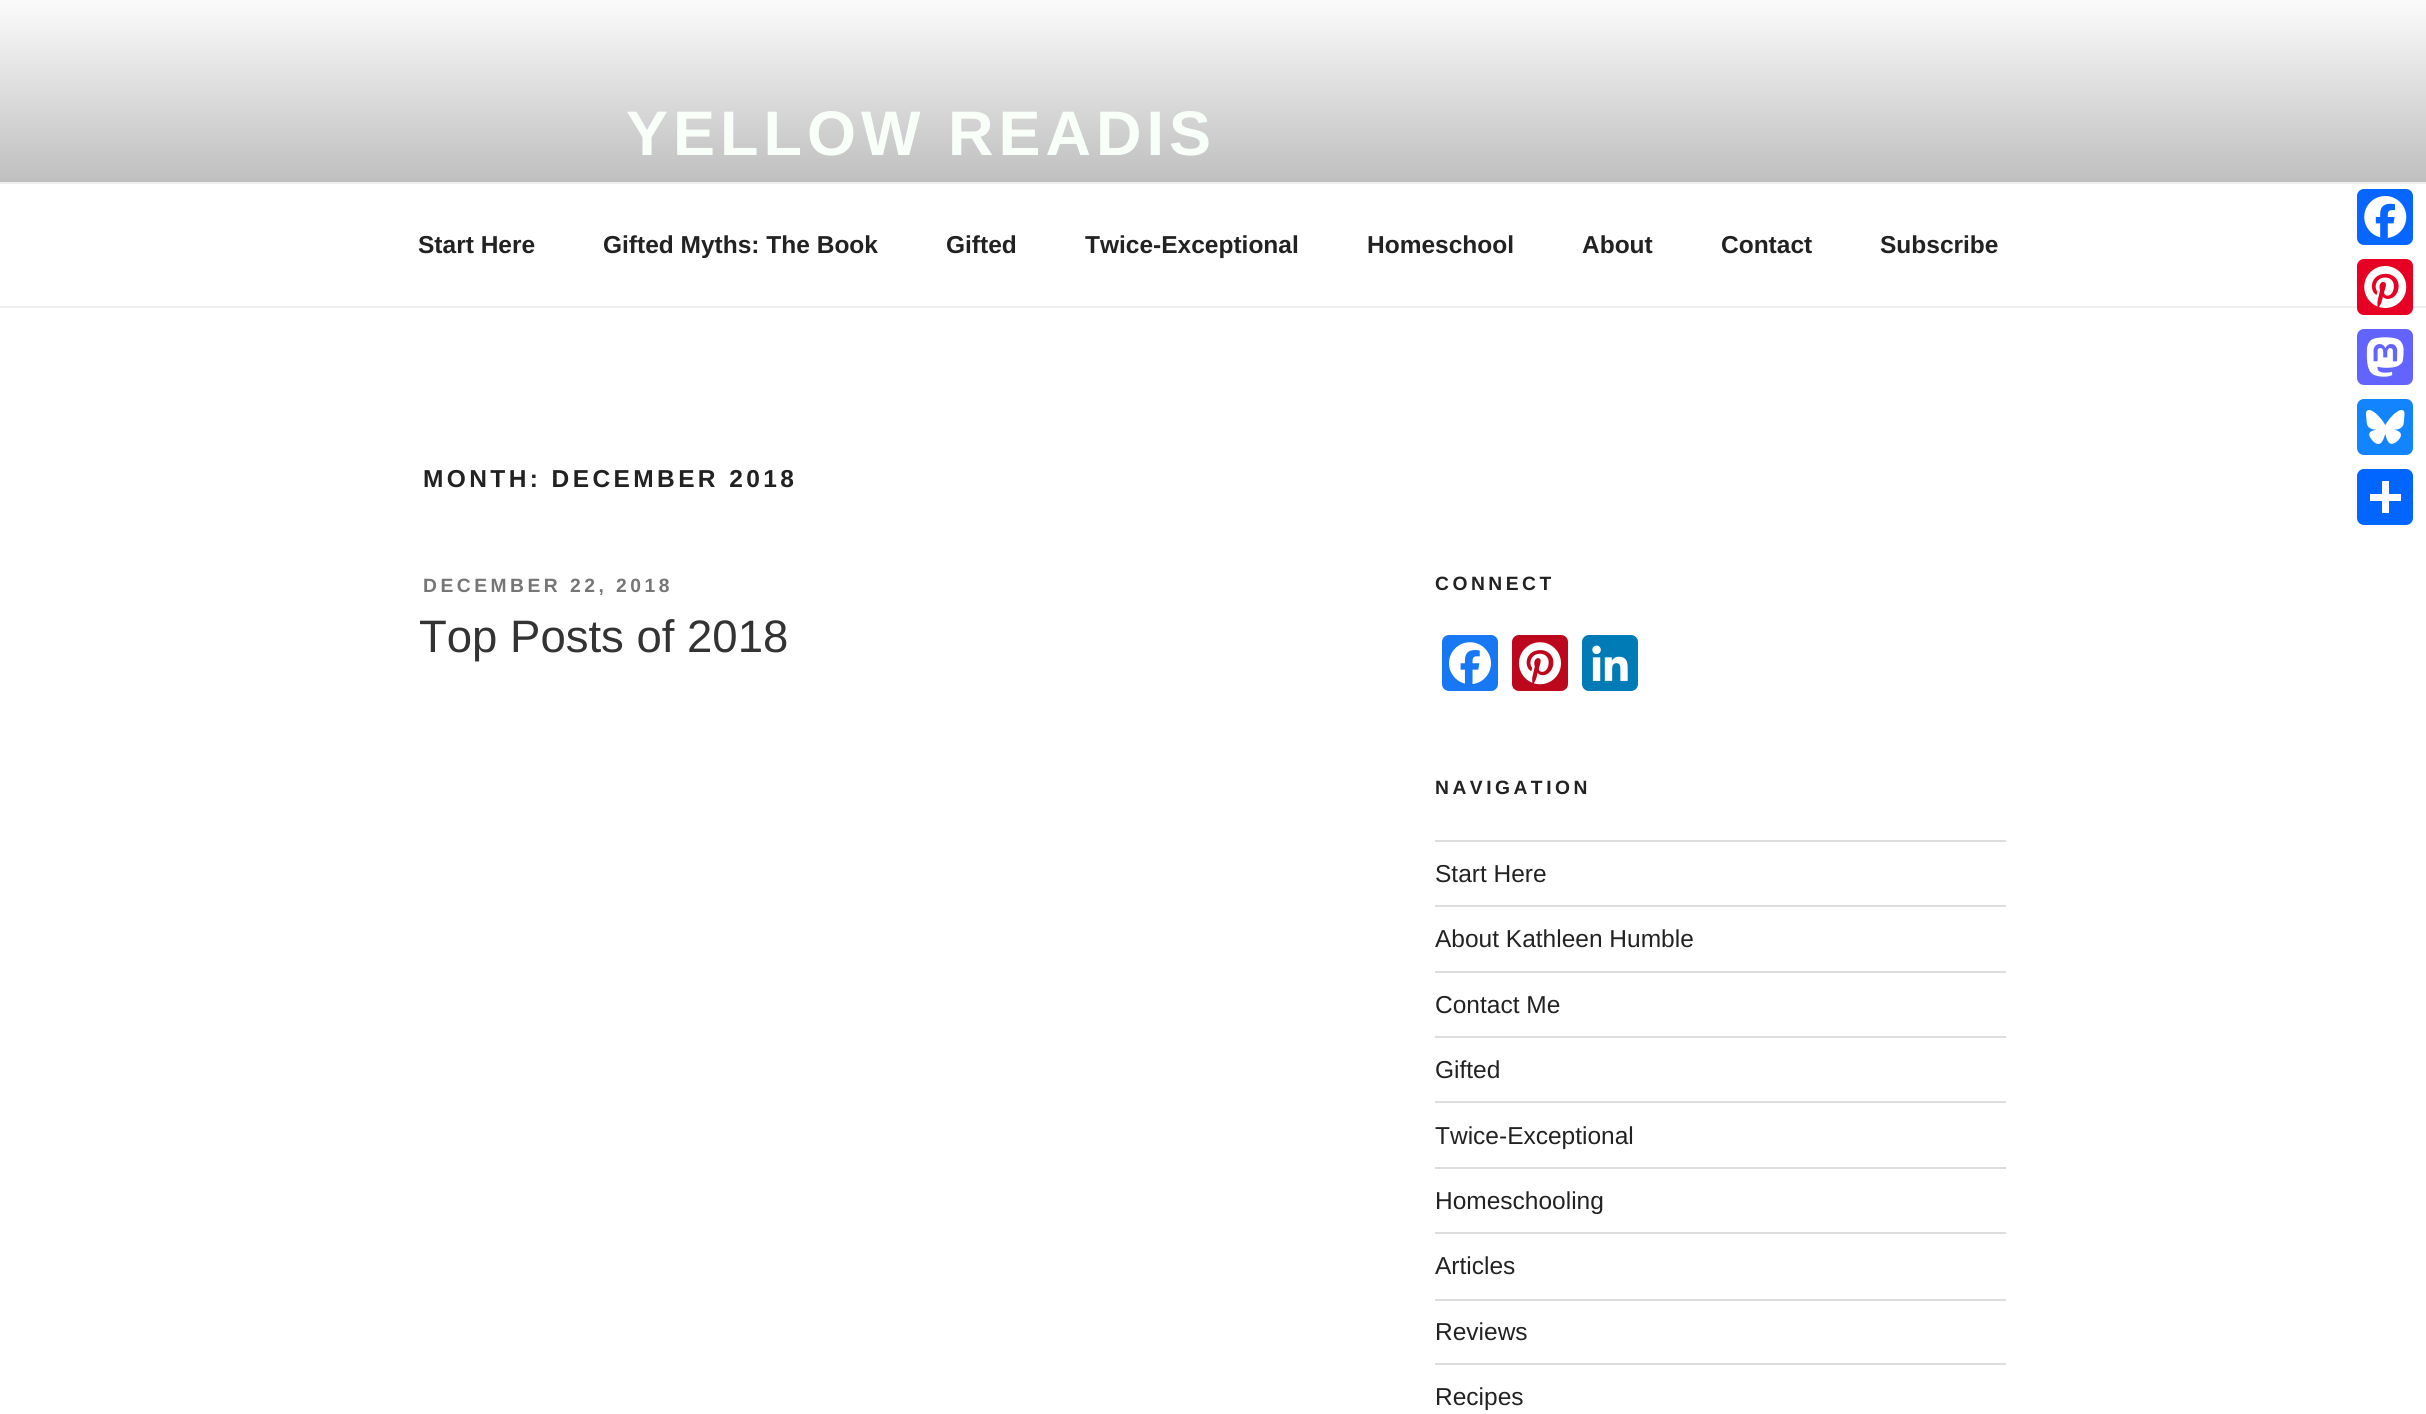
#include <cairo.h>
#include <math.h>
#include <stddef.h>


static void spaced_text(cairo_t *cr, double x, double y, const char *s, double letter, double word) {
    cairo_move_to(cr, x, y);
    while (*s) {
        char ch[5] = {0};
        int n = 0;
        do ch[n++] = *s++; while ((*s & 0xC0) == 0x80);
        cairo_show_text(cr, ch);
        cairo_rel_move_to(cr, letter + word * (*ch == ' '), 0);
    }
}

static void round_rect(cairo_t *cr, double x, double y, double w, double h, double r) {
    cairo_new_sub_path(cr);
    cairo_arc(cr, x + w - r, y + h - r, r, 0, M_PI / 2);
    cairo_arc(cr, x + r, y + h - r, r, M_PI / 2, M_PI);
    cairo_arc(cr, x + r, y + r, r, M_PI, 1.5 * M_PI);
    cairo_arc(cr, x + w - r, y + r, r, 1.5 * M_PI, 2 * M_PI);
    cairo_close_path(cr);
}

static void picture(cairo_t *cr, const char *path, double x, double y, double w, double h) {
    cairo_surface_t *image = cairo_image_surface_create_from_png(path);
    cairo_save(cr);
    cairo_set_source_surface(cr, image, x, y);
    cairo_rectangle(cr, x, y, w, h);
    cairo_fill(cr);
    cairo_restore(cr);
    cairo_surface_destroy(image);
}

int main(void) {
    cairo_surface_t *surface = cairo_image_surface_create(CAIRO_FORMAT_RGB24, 2426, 1414);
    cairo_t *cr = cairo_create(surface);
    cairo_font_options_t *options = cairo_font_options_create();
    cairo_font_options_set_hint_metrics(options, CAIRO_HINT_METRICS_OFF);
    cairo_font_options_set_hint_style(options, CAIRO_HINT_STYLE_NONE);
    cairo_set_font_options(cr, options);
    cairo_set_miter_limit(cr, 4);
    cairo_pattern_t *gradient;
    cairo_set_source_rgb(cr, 1, 1, 1);
    cairo_paint(cr);
    gradient = cairo_pattern_create_linear(1214, 0, 1214, 308);
    cairo_pattern_add_color_stop_rgba(gradient, 0, 0.984, 0.984, 0.984, 1);
    cairo_pattern_add_color_stop_rgba(gradient, 0.75, 0.686, 0.686, 0.686, 1);
    cairo_pattern_add_color_stop_rgba(gradient, 1, 0.686, 0.686, 0.686, 1);
    cairo_set_source(cr, gradient);
    cairo_pattern_destroy(gradient);
    cairo_rectangle(cr, 0, 0, 2426, 182);
    cairo_fill(cr);
    cairo_select_font_face(cr, "Liberation Sans", CAIRO_FONT_SLANT_NORMAL, CAIRO_FONT_WEIGHT_BOLD);
    cairo_set_font_size(cr, 63);
    cairo_set_source_rgb(cr, 0.969, 1, 0.969);
    spaced_text(cr, 626, 155, "YELLOW READIS", 5, 0);
    cairo_set_source_rgb(cr, 0.933, 0.933, 0.933);
    cairo_rectangle(cr, 0, 182, 2426, 2);
    cairo_fill(cr);
    cairo_rectangle(cr, 0, 306, 2426, 2);
    cairo_fill(cr);
    cairo_set_font_size(cr, 24.5);
    cairo_set_source_rgb(cr, 0.133, 0.133, 0.133);
    cairo_move_to(cr, 418, 253);
    cairo_show_text(cr, "Start Here");
    cairo_move_to(cr, 603, 253);
    cairo_show_text(cr, "Gifted Myths: The Book");
    cairo_move_to(cr, 946, 253);
    cairo_show_text(cr, "Gifted");
    cairo_move_to(cr, 1085, 253);
    cairo_show_text(cr, "Twice-Exceptional");
    cairo_move_to(cr, 1367, 253);
    cairo_show_text(cr, "Homeschool");
    cairo_move_to(cr, 1582, 253);
    cairo_show_text(cr, "About");
    cairo_move_to(cr, 1721, 253);
    cairo_show_text(cr, "Contact");
    cairo_move_to(cr, 1880, 253);
    cairo_show_text(cr, "Subscribe");
    spaced_text(cr, 423, 487, "MONTH: DECEMBER 2018", 3.4, 0);
    cairo_set_font_size(cr, 19.25);
    cairo_set_source_rgb(cr, 0.463, 0.463, 0.463);
    spaced_text(cr, 423, 592, "DECEMBER 22, 2018", 3.5, 0);
    cairo_select_font_face(cr, "Liberation Sans", CAIRO_FONT_SLANT_NORMAL, CAIRO_FONT_WEIGHT_NORMAL);
    cairo_set_font_size(cr, 45.5);
    cairo_set_source_rgb(cr, 0.2, 0.2, 0.2);
    cairo_move_to(cr, 419, 652);
    cairo_show_text(cr, "Top Posts of 2018");
    cairo_select_font_face(cr, "Liberation Sans", CAIRO_FONT_SLANT_NORMAL, CAIRO_FONT_WEIGHT_BOLD);
    cairo_set_font_size(cr, 19.25);
    cairo_set_source_rgb(cr, 0.133, 0.133, 0.133);
    spaced_text(cr, 1435, 590, "CONNECT", 3.5, 0);
    cairo_set_source_rgb(cr, 0.094, 0.467, 0.949);
    round_rect(cr, 1442, 635, 56, 56, 7);
    cairo_fill(cr);
    picture(cr, "img1.png", 1449, 642, 42, 43);
    cairo_set_source_rgb(cr, 0.741, 0.031, 0.11);
    round_rect(cr, 1512, 635, 56, 56, 7);
    cairo_fill(cr);
    picture(cr, "img2.png", 1519, 642, 42, 43);
    cairo_set_source_rgb(cr, 0, 0.482, 0.71);
    round_rect(cr, 1582, 635, 56, 56, 7);
    cairo_fill(cr);
    picture(cr, "img3.png", 1592, 645, 36, 36);
    cairo_set_source_rgb(cr, 0.133, 0.133, 0.133);
    spaced_text(cr, 1435, 794, "NAVIGATION", 3.5, 0);
    cairo_set_source_rgb(cr, 0.867, 0.867, 0.867);
    cairo_rectangle(cr, 1435, 840, 571, 2);
    cairo_fill(cr);
    cairo_rectangle(cr, 1435, 905, 571, 2);
    cairo_fill(cr);
    cairo_select_font_face(cr, "Liberation Sans", CAIRO_FONT_SLANT_NORMAL, CAIRO_FONT_WEIGHT_NORMAL);
    cairo_set_font_size(cr, 24.5);
    cairo_set_source_rgb(cr, 0.133, 0.133, 0.133);
    cairo_move_to(cr, 1435, 882);
    cairo_show_text(cr, "Start Here");
    cairo_set_source_rgb(cr, 0.867, 0.867, 0.867);
    cairo_rectangle(cr, 1435, 971, 571, 2);
    cairo_fill(cr);
    cairo_set_source_rgb(cr, 0.133, 0.133, 0.133);
    cairo_move_to(cr, 1435, 947);
    cairo_show_text(cr, "About Kathleen Humble");
    cairo_set_source_rgb(cr, 0.867, 0.867, 0.867);
    cairo_rectangle(cr, 1435, 1036, 571, 2);
    cairo_fill(cr);
    cairo_set_source_rgb(cr, 0.133, 0.133, 0.133);
    cairo_move_to(cr, 1435, 1013);
    cairo_show_text(cr, "Contact Me");
    cairo_set_source_rgb(cr, 0.867, 0.867, 0.867);
    cairo_rectangle(cr, 1435, 1101, 571, 2);
    cairo_fill(cr);
    cairo_set_source_rgb(cr, 0.133, 0.133, 0.133);
    cairo_move_to(cr, 1435, 1078);
    cairo_show_text(cr, "Gifted");
    cairo_set_source_rgb(cr, 0.867, 0.867, 0.867);
    cairo_rectangle(cr, 1435, 1167, 571, 2);
    cairo_fill(cr);
    cairo_set_source_rgb(cr, 0.133, 0.133, 0.133);
    cairo_move_to(cr, 1435, 1144);
    cairo_show_text(cr, "Twice-Exceptional");
    cairo_set_source_rgb(cr, 0.867, 0.867, 0.867);
    cairo_rectangle(cr, 1435, 1232, 571, 2);
    cairo_fill(cr);
    cairo_set_source_rgb(cr, 0.133, 0.133, 0.133);
    cairo_move_to(cr, 1435, 1209);
    cairo_show_text(cr, "Homeschooling");
    cairo_set_source_rgb(cr, 0.867, 0.867, 0.867);
    cairo_rectangle(cr, 1435, 1299, 571, 2);
    cairo_fill(cr);
    cairo_set_source_rgb(cr, 0.133, 0.133, 0.133);
    cairo_move_to(cr, 1435, 1274);
    cairo_show_text(cr, "Articles");
    cairo_set_source_rgb(cr, 0.867, 0.867, 0.867);
    cairo_rectangle(cr, 1435, 1363, 571, 2);
    cairo_fill(cr);
    cairo_set_source_rgb(cr, 0.133, 0.133, 0.133);
    cairo_move_to(cr, 1435, 1340);
    cairo_show_text(cr, "Reviews");
    cairo_move_to(cr, 1435, 1405);
    cairo_show_text(cr, "Recipes");
    cairo_set_source_rgb(cr, 0.031, 0.4, 1);
    round_rect(cr, 2357, 189, 56, 56, 7);
    cairo_fill(cr);
    picture(cr, "img4.png", 2364, 196, 43, 42);
    cairo_set_source_rgb(cr, 0.902, 0, 0.137);
    round_rect(cr, 2357, 259, 56, 56, 7);
    cairo_fill(cr);
    picture(cr, "img5.png", 2364, 266, 43, 42);
    cairo_set_source_rgb(cr, 0.388, 0.392, 1);
    round_rect(cr, 2357, 329, 56, 56, 7);
    cairo_fill(cr);
    picture(cr, "img6.png", 2366, 337, 38, 40);
    cairo_set_source_rgb(cr, 0.071, 0.522, 0.996);
    round_rect(cr, 2357, 399, 56, 56, 7);
    cairo_fill(cr);
    picture(cr, "img7.png", 2366, 410, 39, 34);
    cairo_set_source_rgb(cr, 0.004, 0.4, 1);
    round_rect(cr, 2357, 469, 56, 56, 7);
    cairo_fill(cr);
    cairo_set_source_rgb(cr, 1, 1, 1);
    cairo_rectangle(cr, 2382, 481, 7, 32);
    cairo_fill(cr);
    cairo_rectangle(cr, 2370, 494, 31, 7);
    cairo_fill(cr);
    cairo_surface_write_to_png(surface, "page.png");
    cairo_font_options_destroy(options);
    cairo_destroy(cr);
    cairo_surface_destroy(surface);
    return 0;
}
